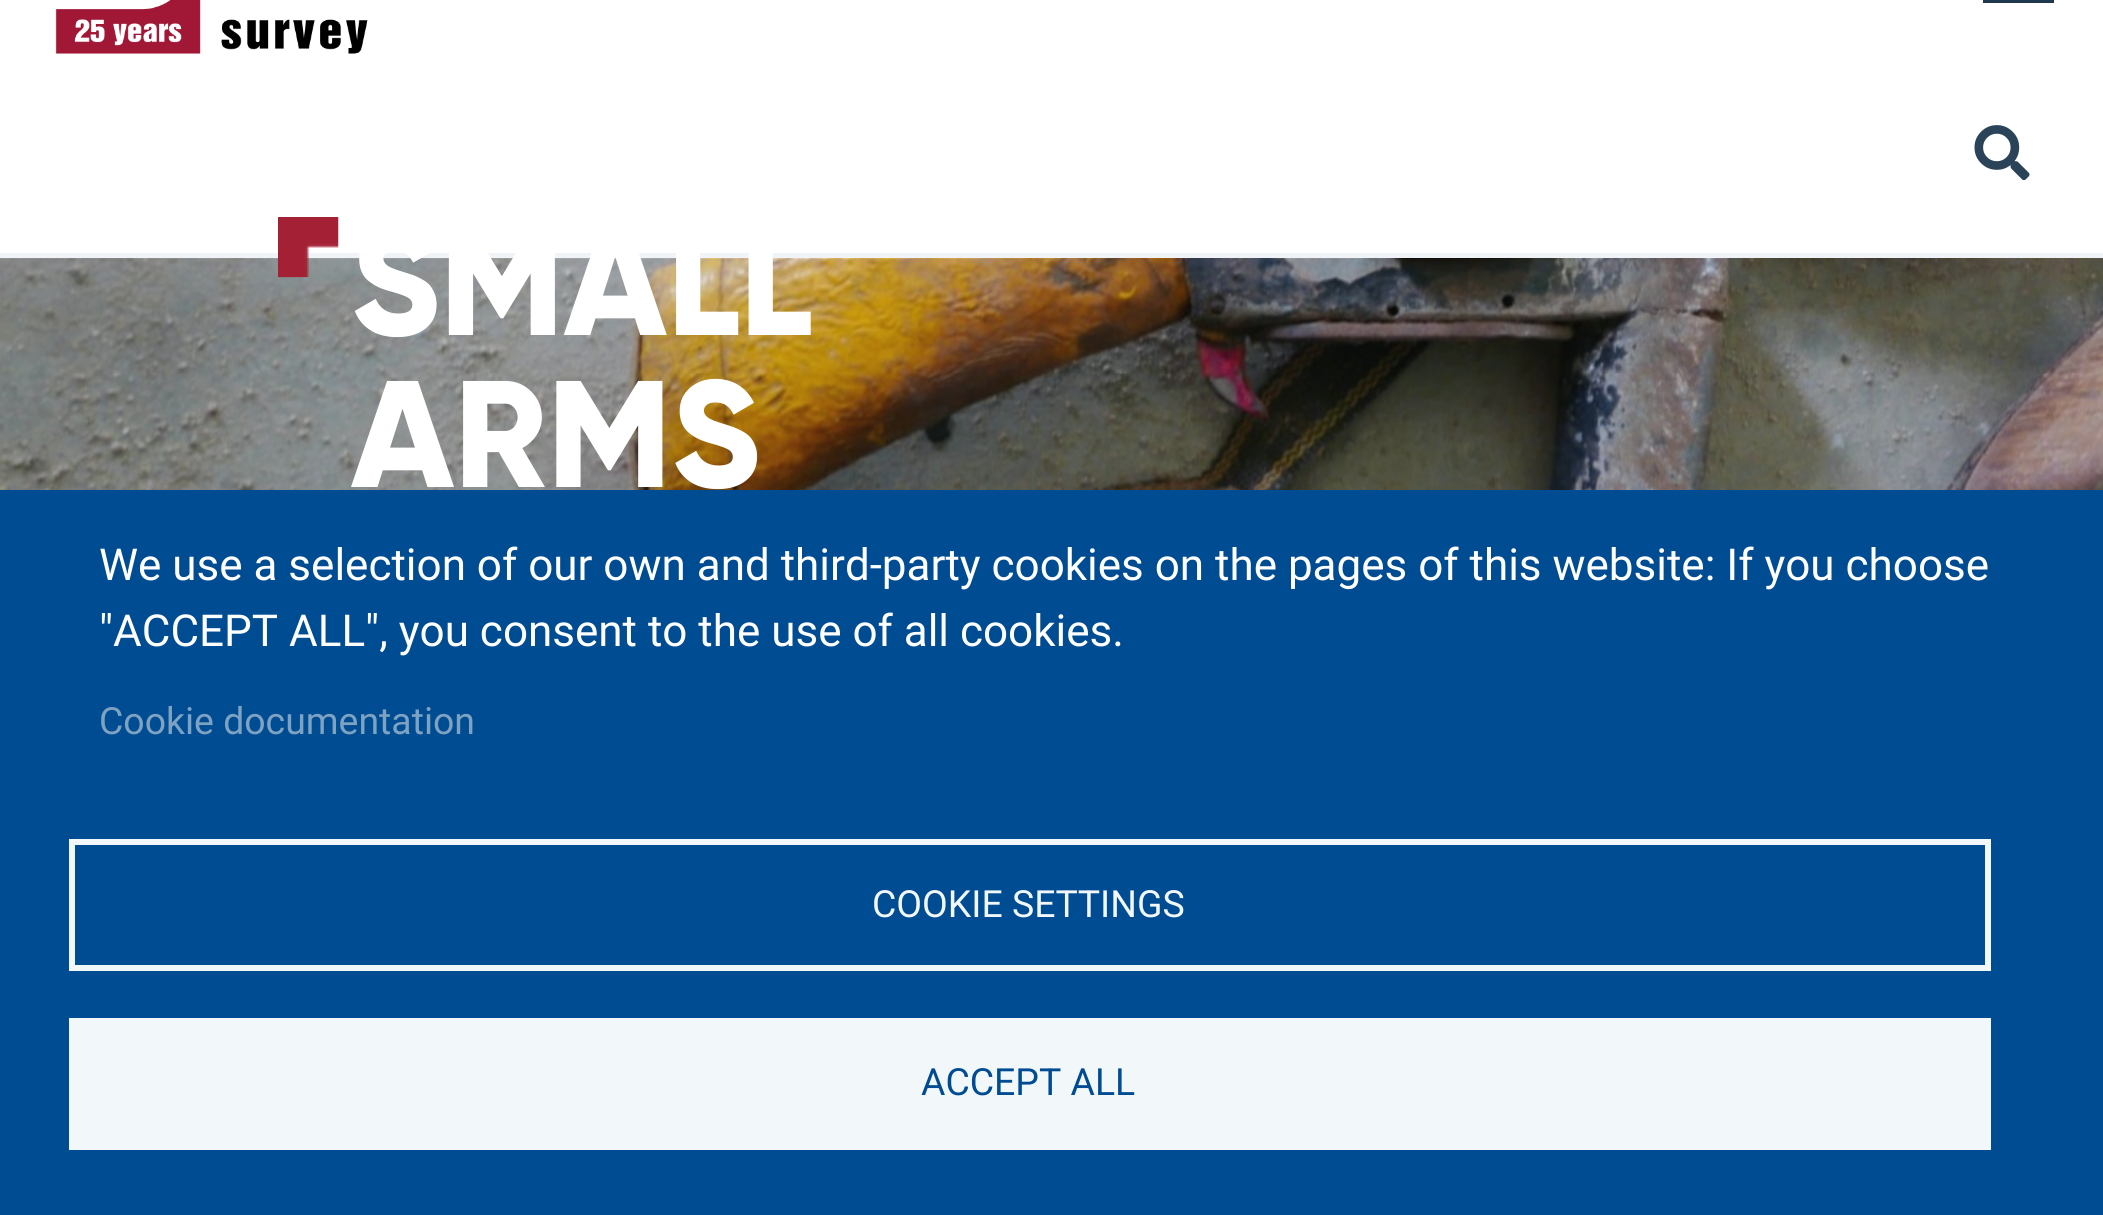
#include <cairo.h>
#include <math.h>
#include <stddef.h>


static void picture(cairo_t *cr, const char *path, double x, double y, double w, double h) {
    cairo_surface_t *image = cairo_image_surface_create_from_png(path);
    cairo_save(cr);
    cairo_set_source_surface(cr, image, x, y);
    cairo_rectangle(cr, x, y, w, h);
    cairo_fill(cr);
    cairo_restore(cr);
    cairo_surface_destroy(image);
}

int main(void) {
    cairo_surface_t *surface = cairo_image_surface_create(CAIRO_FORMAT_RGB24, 2103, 1215);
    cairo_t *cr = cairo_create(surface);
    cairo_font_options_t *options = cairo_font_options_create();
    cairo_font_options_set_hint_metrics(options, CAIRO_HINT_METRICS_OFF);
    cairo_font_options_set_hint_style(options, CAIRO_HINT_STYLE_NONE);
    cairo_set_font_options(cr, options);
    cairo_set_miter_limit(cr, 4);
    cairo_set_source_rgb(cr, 1, 1, 1);
    cairo_paint(cr);
    cairo_set_source_rgb(cr, 0.941, 0.953, 0.965);
    cairo_rectangle(cr, 0, 253, 2103, 5);
    cairo_fill(cr);
    picture(cr, "img1.png", 55, 0, 313, 54);
    cairo_set_source_rgb(cr, 0.122, 0.22, 0.306);
    cairo_rectangle(cr, 1983, 0, 71, 3);
    cairo_fill(cr);
    picture(cr, "img2.png", 1974, 125, 56, 56);
    picture(cr, "img4.png", 0, 258, 2103, 232);
    picture(cr, "img3.png", 278, 217, 61, 61);
    cairo_select_font_face(cr, "Gilroy", CAIRO_FONT_SLANT_NORMAL, CAIRO_FONT_WEIGHT_NORMAL);
    cairo_set_font_size(cr, 151.5);
    cairo_set_source_rgb(cr, 1, 1, 1);
    cairo_move_to(cr, 351, 335);
    cairo_show_text(cr, "SMALL");
    cairo_move_to(cr, 351, 487);
    cairo_show_text(cr, "ARMS");
    cairo_set_source_rgb(cr, 0, 0.298, 0.576);
    cairo_rectangle(cr, 0, 490, 2103, 725);
    cairo_fill(cr);
    cairo_select_font_face(cr, "Roboto", CAIRO_FONT_SLANT_NORMAL, CAIRO_FONT_WEIGHT_NORMAL);
    cairo_set_font_size(cr, 44);
    cairo_set_source_rgb(cr, 1, 1, 1);
    cairo_move_to(cr, 99, 580);
    cairo_show_text(cr, "We use a selection of our own and third-party cookies on the pages of this website: If you choose");
    cairo_move_to(cr, 99, 646);
    cairo_show_text(cr, "\"ACCEPT ALL\", you consent to the use of all cookies.");
    cairo_set_font_size(cr, 37.4);
    cairo_set_source_rgb(cr, 0.494, 0.635, 0.761);
    cairo_move_to(cr, 99, 734);
    cairo_show_text(cr, "Cookie documentation");
    cairo_rectangle(cr, 72, 842, 1916, 126);
    cairo_set_source_rgb(cr, 0.949, 0.965, 0.98);
    cairo_set_line_width(cr, 6);
    cairo_stroke(cr);
    cairo_move_to(cr, 872, 917);
    cairo_show_text(cr, "COOKIE SETTINGS");
    cairo_rectangle(cr, 69, 1018, 1922, 132);
    cairo_fill(cr);
    cairo_set_source_rgb(cr, 0, 0.298, 0.576);
    cairo_move_to(cr, 921, 1095);
    cairo_show_text(cr, "ACCEPT ALL");
    cairo_surface_write_to_png(surface, "page.png");
    cairo_font_options_destroy(options);
    cairo_destroy(cr);
    cairo_surface_destroy(surface);
    return 0;
}
